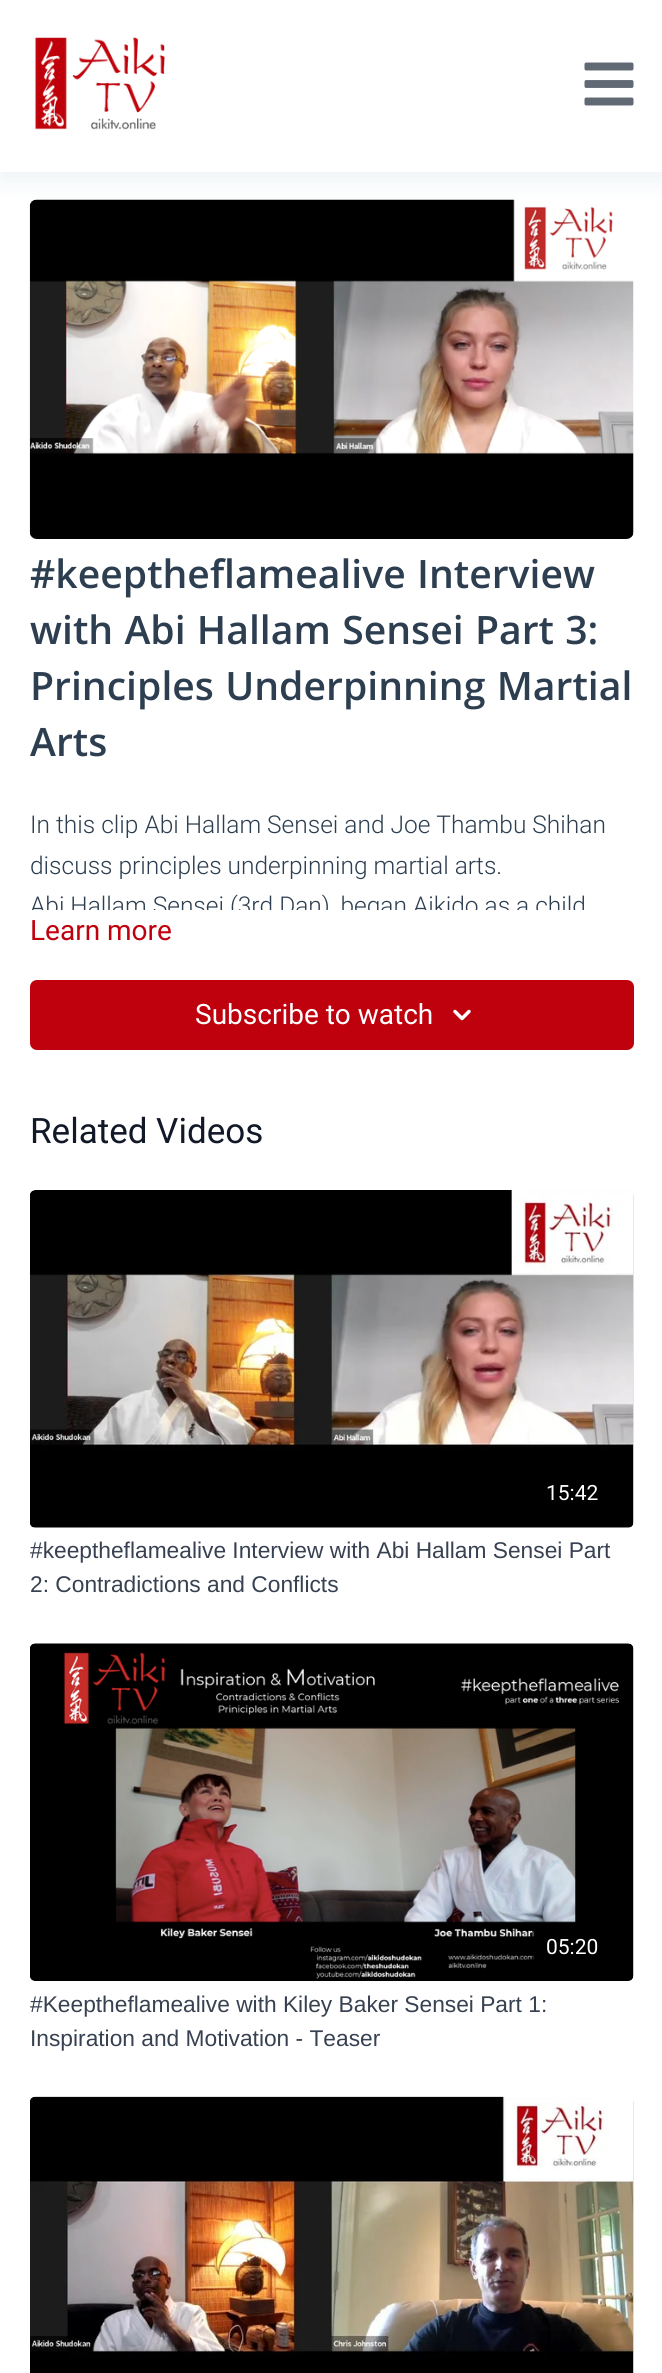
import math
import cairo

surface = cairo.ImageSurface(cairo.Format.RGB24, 662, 2373)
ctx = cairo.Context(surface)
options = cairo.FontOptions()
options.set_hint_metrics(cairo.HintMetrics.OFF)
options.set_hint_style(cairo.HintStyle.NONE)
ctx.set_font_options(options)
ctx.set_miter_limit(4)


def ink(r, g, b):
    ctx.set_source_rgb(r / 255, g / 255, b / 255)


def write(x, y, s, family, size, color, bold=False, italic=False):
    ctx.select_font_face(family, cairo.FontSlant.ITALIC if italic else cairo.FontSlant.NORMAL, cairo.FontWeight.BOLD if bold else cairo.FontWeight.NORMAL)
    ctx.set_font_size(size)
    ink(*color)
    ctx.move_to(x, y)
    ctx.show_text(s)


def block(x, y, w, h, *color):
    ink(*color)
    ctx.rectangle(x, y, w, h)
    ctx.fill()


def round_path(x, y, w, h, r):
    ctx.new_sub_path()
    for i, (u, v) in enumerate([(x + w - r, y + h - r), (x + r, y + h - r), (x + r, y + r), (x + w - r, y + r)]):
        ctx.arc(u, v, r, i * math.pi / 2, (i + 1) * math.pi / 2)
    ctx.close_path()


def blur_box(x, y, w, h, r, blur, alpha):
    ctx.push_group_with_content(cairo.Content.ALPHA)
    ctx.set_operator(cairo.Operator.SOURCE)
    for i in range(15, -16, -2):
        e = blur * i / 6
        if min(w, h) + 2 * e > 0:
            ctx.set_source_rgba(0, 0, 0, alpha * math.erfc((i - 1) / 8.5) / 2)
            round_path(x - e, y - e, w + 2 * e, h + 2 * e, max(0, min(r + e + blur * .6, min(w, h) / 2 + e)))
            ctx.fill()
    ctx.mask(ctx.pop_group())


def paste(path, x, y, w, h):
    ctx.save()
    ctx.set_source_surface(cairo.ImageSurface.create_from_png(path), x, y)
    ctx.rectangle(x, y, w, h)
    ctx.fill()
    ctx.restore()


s1 = dict(family="Khula SemiBold", size=42, color=(44, 62, 80))
s2 = dict(family="Roboto Light", size=24.5, color=(44, 62, 80))
s3 = dict(family="Roboto", size=28, color=(191, 1, 14))
s4 = dict(family="Roboto", size=28, color=(255, 255, 255))
s5 = dict(family="Roboto", size=35, color=(17, 24, 39))
s6 = dict(family="Roboto", size=21, color=(255, 255, 255))
s7 = dict(family="Liberation Sans", size=22.75, color=(55, 65, 81))

ink(255, 255, 255)
ctx.paint()
paste("pic3.png", 29, 199, 605, 340)
ink(14, 90, 136)
blur_box(0, 9, 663, 171, 0, 13, 0.08)
block(0, 0, 662, 172, 255, 255, 255)
paste("pic1.png", 35, 37, 130, 93)
paste("pic2.png", 584, 62, 50, 44)
write(30, 588, "#keeptheflamealive Interview", **s1)
write(30, 644, "with Abi Hallam Sensei Part 3:", **s1)
write(30, 700, "Principles Underpinning Martial", **s1)
write(30, 756, "Arts", **s1)
write(30, 833, "In this clip Abi Hallam Sensei and Joe Thambu Shihan", **s2)
write(30, 874, "discuss principles underpinning martial arts.", **s2)
ctx.save()
ctx.rectangle(30, 805, 604, 105)
ctx.clip()
write(30, 914, "Abi Hallam Sensei (3rd Dan), began Aikido as a child", **s2)
ctx.restore()
write(30, 940, "Learn more", **s3)
round_path(30, 980, 604, 70, 7)
ctx.fill()
write(195, 1024, "Subscribe to watch", **s4)
paste("pic4.png", 453, 1009, 18, 12)
write(30, 1143, "Related Videos", **s5)
gradient = cairo.LinearGradient(30, 1359, 634, 1359)
gradient.add_color_stop_rgba(0.08, 0.871, 0.871, 0.871, 1)
gradient.add_color_stop_rgba(0.18, 0.882, 0.882, 0.882, 1)
gradient.add_color_stop_rgba(0.33, 0.894, 0.894, 0.894, 1)
ctx.set_source(gradient)
round_path(30, 1190, 604, 338, 7)
ctx.fill()
paste("pic5.png", 30, 1190, 604, 338)
write(546, 1500, "15:42", **s6)
write(30, 1558, "#keeptheflamealive Interview with Abi Hallam Sensei Part", **s7)
write(30, 1592, "2: Contradictions and Conflicts", **s7)
gradient = cairo.LinearGradient(30, 1812, 634, 1812)
gradient.add_color_stop_rgba(0.08, 0.871, 0.871, 0.871, 1)
gradient.add_color_stop_rgba(0.18, 0.882, 0.882, 0.882, 1)
gradient.add_color_stop_rgba(0.33, 0.894, 0.894, 0.894, 1)
ctx.set_source(gradient)
round_path(30, 1643, 604, 338, 7)
ctx.fill()
paste("pic6.png", 30, 1643, 604, 338)
ctx.set_source_rgba(0, 0, 0, 0.6)
round_path(532, 1925, 88, 42, 7)
ctx.fill()
write(546, 1954, "05:20", **s6)
write(30, 2012, "#Keeptheflamealive with Kiley Baker Sensei Part 1:", **s7)
write(30, 2046, "Inspiration and Motivation - Teaser", **s7)
gradient = cairo.LinearGradient(30, 2266, 634, 2266)
gradient.add_color_stop_rgba(0.08, 0.871, 0.871, 0.871, 1)
gradient.add_color_stop_rgba(0.18, 0.882, 0.882, 0.882, 1)
gradient.add_color_stop_rgba(0.33, 0.89, 0.89, 0.89, 1)
ctx.set_source(gradient)
round_path(30, 2097, 604, 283, 7)
ctx.fill()
paste("pic7.png", 30, 2096, 604, 277)
surface.write_to_png("screenshot.png")
